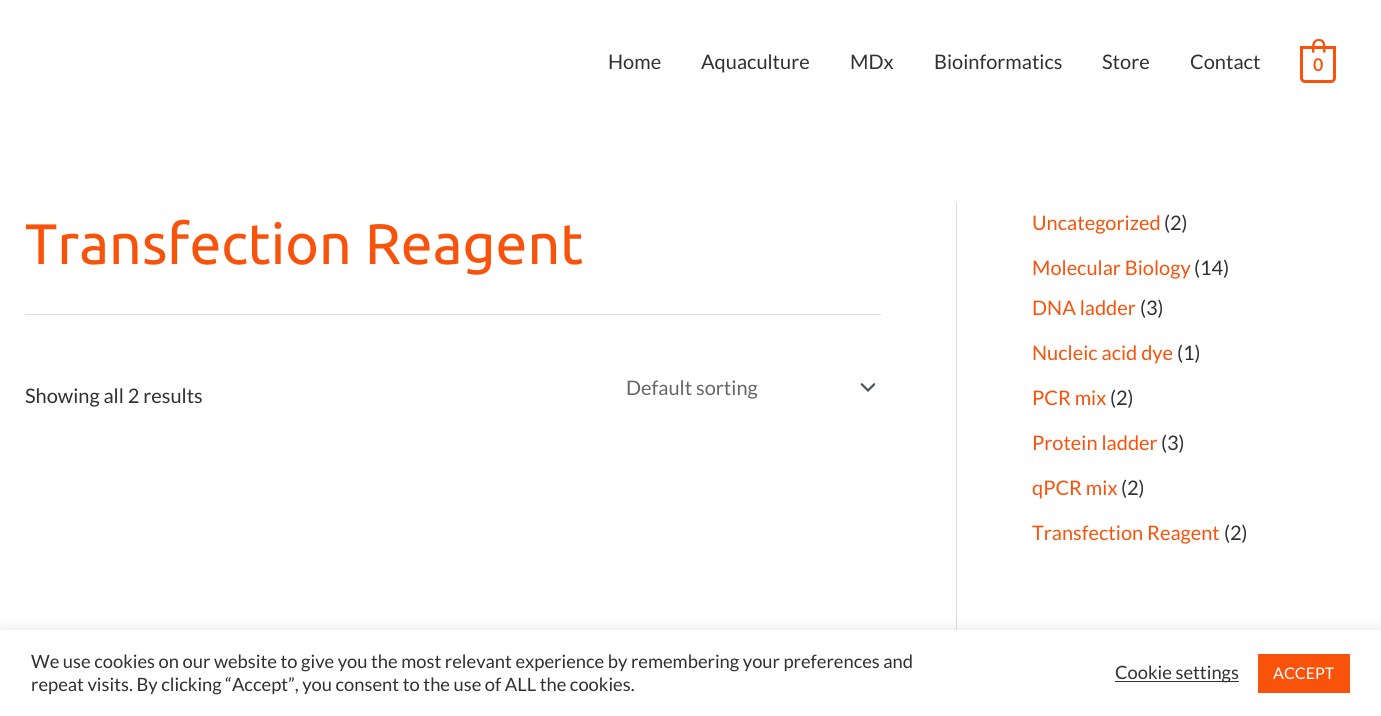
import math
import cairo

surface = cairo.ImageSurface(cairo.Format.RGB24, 1381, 716)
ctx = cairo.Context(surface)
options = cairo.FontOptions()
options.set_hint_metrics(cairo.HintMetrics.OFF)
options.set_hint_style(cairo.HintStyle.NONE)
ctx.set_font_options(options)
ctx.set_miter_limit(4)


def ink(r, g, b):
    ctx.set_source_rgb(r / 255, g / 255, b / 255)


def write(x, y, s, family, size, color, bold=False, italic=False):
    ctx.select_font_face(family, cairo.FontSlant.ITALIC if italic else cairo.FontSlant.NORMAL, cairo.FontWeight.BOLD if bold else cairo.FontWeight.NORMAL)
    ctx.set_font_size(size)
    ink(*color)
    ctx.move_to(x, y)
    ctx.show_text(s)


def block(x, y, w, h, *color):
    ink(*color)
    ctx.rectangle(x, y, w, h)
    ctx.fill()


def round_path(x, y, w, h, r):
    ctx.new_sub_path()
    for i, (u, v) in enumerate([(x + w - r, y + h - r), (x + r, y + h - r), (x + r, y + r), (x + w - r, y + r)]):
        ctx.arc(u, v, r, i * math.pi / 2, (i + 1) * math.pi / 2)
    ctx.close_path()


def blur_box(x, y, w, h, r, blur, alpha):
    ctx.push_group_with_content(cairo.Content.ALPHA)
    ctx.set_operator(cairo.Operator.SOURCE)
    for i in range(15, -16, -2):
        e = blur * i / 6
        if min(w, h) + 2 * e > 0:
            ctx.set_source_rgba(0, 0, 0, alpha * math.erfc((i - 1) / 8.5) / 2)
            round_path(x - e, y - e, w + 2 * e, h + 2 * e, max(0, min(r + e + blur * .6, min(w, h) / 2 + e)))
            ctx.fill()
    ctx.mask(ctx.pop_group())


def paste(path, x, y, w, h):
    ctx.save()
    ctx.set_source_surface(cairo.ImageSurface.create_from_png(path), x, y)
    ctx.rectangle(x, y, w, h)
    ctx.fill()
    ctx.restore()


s1 = dict(family="Lato", size=20, color=(48, 48, 48))
s2 = dict(family="Lato", size=17, color=(249, 82, 11), bold=True)
s3 = dict(family="Ubuntu", size=57.1, color=(249, 82, 11))
s4 = dict(family="Lato", size=20, color=(102, 102, 102))
s5 = dict(family="Lato", size=20, color=(249, 82, 11))
s6 = dict(family="Lato", size=18.35, color=(48, 48, 48))
s7 = dict(family="Lato", size=16, color=(255, 255, 255))

ink(255, 255, 255)
ctx.paint()
write(608, 69, "Home", **s1)
write(701, 69, "Aquaculture", **s1)
write(850, 69, "MDx", **s1)
write(934, 69, "Bioinformatics", **s1)
write(1102, 69, "Store", **s1)
write(1190, 69, "Contact", **s1)
ctx.new_path()
ctx.move_to(1301.5, 47.5)
ctx.line_to(1334.5, 47.5)
ctx.line_to(1334.5, 78)
ctx.curve_to(1334.5, 80, 1333, 81.5, 1331, 81.5)
ctx.line_to(1305, 81.5)
ctx.curve_to(1303, 81.5, 1301.5, 80, 1301.5, 78)
ctx.close_path()
ink(249, 82, 11)
ctx.set_line_width(3)
ctx.stroke()
ctx.set_fill_rule(cairo.FillRule.EVEN_ODD)
ctx.new_path()
ctx.move_to(1319, 39)
ctx.curve_to(1326.5, 39, 1325.5, 47, 1325.5, 52.5)
ctx.line_to(1312, 52.5)
ctx.curve_to(1312, 47, 1311, 39, 1319, 39)
ctx.close_path()
ctx.move_to(1319, 41)
ctx.curve_to(1324.5, 41, 1323, 49, 1323, 52.5)
ctx.line_to(1314.5, 52.5)
ctx.curve_to(1314.5, 49, 1313, 41, 1319, 41)
ctx.close_path()
ctx.fill()
write(1313, 71, "0", **s2)
block(956, 203, 1, 427, 221, 221, 221)
block(25, 314, 856, 1, 221, 221, 221)
write(25, 264, "Transfection Reagent", **s3)
write(25, 403, "Showing all 2 results", **s1)
paste("pic1.png", 860, 383, 15, 9)
write(626, 395, "Default sorting", **s4)
write(1032, 230, "Uncategorized", **s5)
write(1164, 230, "(2)", **s1)
write(1032, 275, "Molecular Biology", **s5)
write(1194, 275, "(14)", **s1)
write(1032, 315, "DNA ladder", **s5)
write(1140, 315, "(3)", **s1)
write(1032, 360, "Nucleic acid dye", **s5)
write(1177, 360, "(1)", **s1)
write(1032, 405, "PCR mix", **s5)
write(1110, 405, "(2)", **s1)
write(1032, 450, "Protein ladder", **s5)
write(1161, 450, "(3)", **s1)
write(1032, 495, "qPCR mix", **s5)
write(1121, 495, "(2)", **s1)
write(1032, 540, "Transfection Reagent", **s5)
write(1224, 540, "(2)", **s1)
ink(172, 171, 171)
blur_box(0, 629, 1381, 86, 0, 6, 0.3)
block(0, 630, 1381, 86, 255, 255, 255)
write(31, 668, "We use cookies on our website to give you the most relevant experience by remembering your preferences and", **s6)
write(31, 691, "repeat visits. By clicking “Accept”, you consent to the use of ALL the cookies.", **s6)
block(1115, 681, 124, 1, 51, 51, 51)
write(1115, 679, "Cookie settings", **s6)
block(1258, 654, 92, 39, 249, 82, 11)
write(1273, 679, "ACCEPT", **s7)
surface.write_to_png("screenshot.png")
